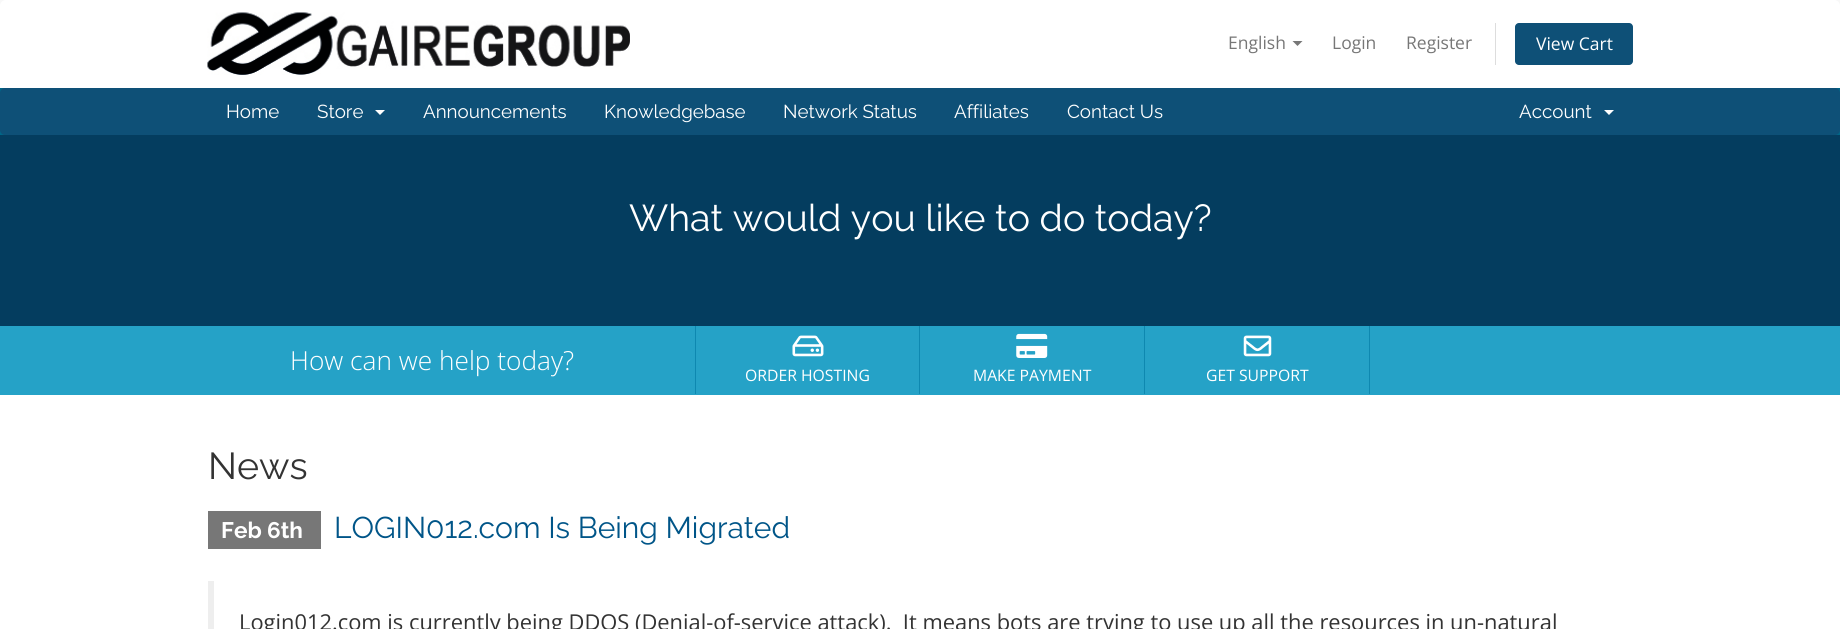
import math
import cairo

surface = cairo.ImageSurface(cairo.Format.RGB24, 1840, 629)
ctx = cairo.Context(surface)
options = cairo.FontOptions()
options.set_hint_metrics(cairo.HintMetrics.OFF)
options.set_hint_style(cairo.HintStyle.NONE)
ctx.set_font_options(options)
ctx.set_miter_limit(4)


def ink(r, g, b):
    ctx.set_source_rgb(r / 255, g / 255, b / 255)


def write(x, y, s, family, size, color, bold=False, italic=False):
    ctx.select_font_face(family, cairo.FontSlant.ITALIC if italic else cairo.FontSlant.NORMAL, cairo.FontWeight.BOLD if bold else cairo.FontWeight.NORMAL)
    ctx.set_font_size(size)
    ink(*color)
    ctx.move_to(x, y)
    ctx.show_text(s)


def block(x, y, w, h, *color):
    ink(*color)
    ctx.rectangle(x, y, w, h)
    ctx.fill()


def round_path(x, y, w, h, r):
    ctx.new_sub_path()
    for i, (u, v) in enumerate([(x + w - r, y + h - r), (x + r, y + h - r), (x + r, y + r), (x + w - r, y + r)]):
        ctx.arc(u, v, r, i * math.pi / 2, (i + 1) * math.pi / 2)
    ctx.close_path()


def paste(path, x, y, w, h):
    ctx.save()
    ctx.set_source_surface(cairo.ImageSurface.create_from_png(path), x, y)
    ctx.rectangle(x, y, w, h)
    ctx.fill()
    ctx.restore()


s1 = dict(family="Open Sans", size=17.5, color=(119, 119, 119))
s2 = dict(family="Open Sans", size=17.5, color=(255, 255, 255))
s3 = dict(family="Raleway", size=18.75, color=(255, 255, 255))
s4 = dict(family="Raleway", size=37.5, color=(255, 255, 255))
s5 = dict(family="Open Sans Light", size=26.25, color=(255, 255, 255))
s6 = dict(family="Open Sans", size=15.75, color=(255, 255, 255))
s7 = dict(family="Raleway", size=37.5, color=(51, 51, 51))
s8 = dict(family="Raleway", size=22.5, color=(255, 255, 255), bold=True)
s9 = dict(family="Raleway", size=30, color=(0, 85, 136))
s10 = dict(family="Open Sans", size=21.88, color=(51, 51, 51))

ink(248, 248, 248)
ctx.paint()
ink(255, 255, 255)
ctx.new_path()
ctx.move_to(6, 0)
ctx.line_to(1834, 0)
ctx.curve_to(1837.5, 0, 1840, 2.5, 1840, 6)
ctx.line_to(1840, 88)
ctx.line_to(0, 88)
ctx.line_to(0, 6)
ctx.curve_to(0, 2.5, 2.5, 0, 6, 0)
ctx.close_path()
ctx.fill()
paste("pic1.png", 207, 12, 423, 63)
write(1228, 49, "English", **s1)
ctx.new_path()
ctx.move_to(1292.5, 41)
ctx.line_to(1302.5, 41)
ctx.line_to(1297.5, 46)
ctx.close_path()
ctx.fill()
write(1332, 49, "Login", **s1)
write(1406, 49, "Register", **s1)
block(1495, 23, 1, 42, 221, 221, 221)
ink(14, 80, 119)
round_path(1515, 23, 118, 42, 4)
ctx.fill()
write(1536, 50, "View Cart", **s2)
block(0, 88, 1840, 47, 0, 102, 135)
ink(14, 80, 119)
round_path(0, 88, 1840, 47, 5)
ctx.fill()
write(226, 118, "Home", **s3)
write(317, 118, "Store", **s3)
ctx.new_path()
ctx.move_to(375, 110)
ctx.line_to(385, 110)
ctx.line_to(380, 115)
ctx.close_path()
ctx.fill()
write(423, 118, "Announcements", **s3)
write(604, 118, "Knowledgebase", **s3)
write(783, 118, "Network Status", **s3)
write(954, 118, "Affiliates", **s3)
write(1067, 118, "Contact Us", **s3)
write(1519, 118, "Account", **s3)
ctx.new_path()
ctx.move_to(1604, 110)
ctx.line_to(1614, 110)
ctx.line_to(1609, 115)
ctx.close_path()
ctx.fill()
block(0, 135, 1840, 191, 4, 61, 95)
write(629, 231, "What would you like to do today?", **s4)
block(0, 326, 1840, 69, 37, 162, 199)
write(290, 370, "How can we help today?", **s5)
block(919, 326, 1, 68, 14, 136, 176)
block(695, 326, 1, 68, 14, 136, 176)
paste("pic2.png", 792, 335, 32, 22)
write(745, 381, "ORDER HOSTING", **s6)
block(1144, 326, 1, 68, 14, 136, 176)
paste("pic3.png", 1016, 333, 32, 25)
write(973, 381, "MAKE PAYMENT", **s6)
block(1369, 326, 1, 68, 14, 136, 176)
paste("pic4.png", 1243, 335, 29, 22)
write(1206, 381, "GET SUPPORT", **s6)
block(0, 395, 1840, 234, 255, 255, 255)
write(208, 479, "News", **s7)
block(208, 511, 113, 38, 119, 119, 119)
write(221, 538, "Feb 6th", **s8)
write(334, 538, "LOGIN012.com Is Being Migrated", **s9)
block(208, 581, 6, 48, 238, 238, 238)
write(239, 630, "Login012.com is currently being DDOS (Denial-of-service attack).  It means bots are trying to use up all the resources in un-natural", **s10)
surface.write_to_png("screenshot.png")
